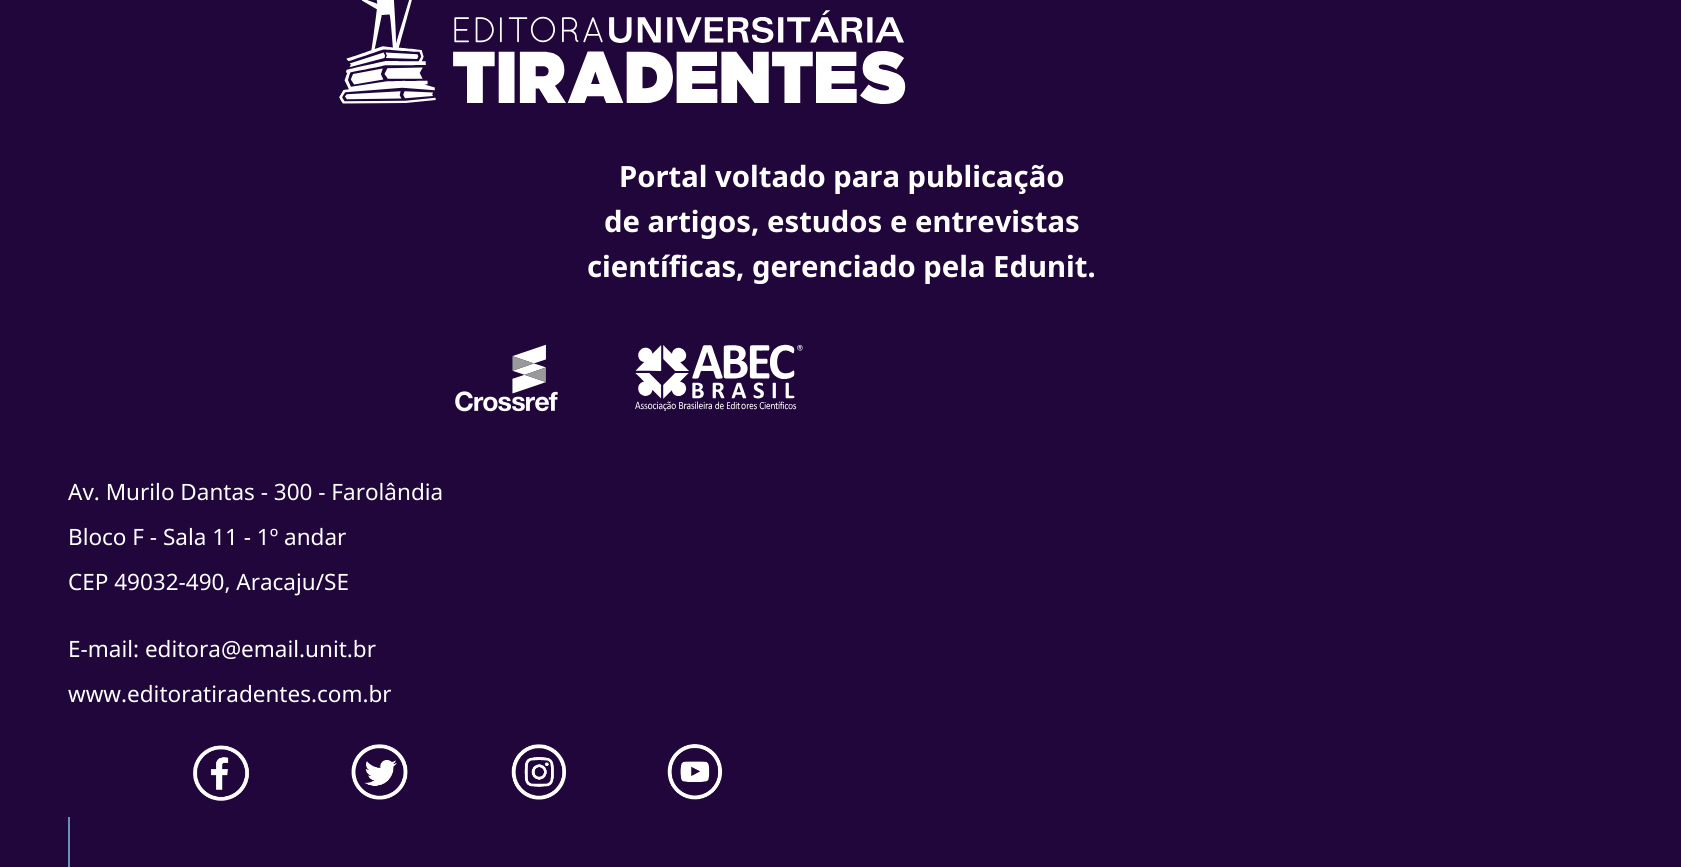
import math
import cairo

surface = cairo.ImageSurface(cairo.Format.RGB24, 1681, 867)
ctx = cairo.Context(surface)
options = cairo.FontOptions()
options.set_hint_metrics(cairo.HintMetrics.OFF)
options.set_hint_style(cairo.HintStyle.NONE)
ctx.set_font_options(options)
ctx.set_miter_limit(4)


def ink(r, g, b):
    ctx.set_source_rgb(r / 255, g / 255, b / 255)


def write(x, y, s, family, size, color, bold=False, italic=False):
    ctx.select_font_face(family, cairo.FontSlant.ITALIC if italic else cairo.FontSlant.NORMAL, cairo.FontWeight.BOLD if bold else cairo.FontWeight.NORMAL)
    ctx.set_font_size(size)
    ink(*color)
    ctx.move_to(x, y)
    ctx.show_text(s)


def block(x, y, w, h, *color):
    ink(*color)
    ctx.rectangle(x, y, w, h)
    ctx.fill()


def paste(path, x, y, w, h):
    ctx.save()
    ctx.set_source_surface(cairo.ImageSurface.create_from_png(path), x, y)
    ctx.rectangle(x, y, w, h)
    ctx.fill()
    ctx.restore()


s1 = dict(family="Noto Sans", size=29.25, color=(255, 255, 255), bold=True)
s2 = dict(family="Noto Sans", size=22.5, color=(255, 255, 255))

ink(32, 6, 59)
ctx.paint()
paste("pic1.png", 339, 0, 567, 104)
write(619, 187, "Portal voltado para publicação", **s1)
write(604, 232, "de artigos, estudos e entrevistas", **s1)
write(587, 277, "científicas, gerenciado pela Edunit.", **s1)
paste("pic2.png", 455, 344, 103, 68)
paste("pic3.png", 635, 344, 168, 67)
write(68, 500, "Av. Murilo Dantas - 300 - Farolândia", **s2)
write(68, 545, "Bloco F - Sala 11 - 1º andar", **s2)
write(68, 590, "CEP 49032-490, Aracaju/SE", **s2)
write(68, 657, "E-mail: editora@email.unit.br", **s2)
write(68, 702, "www.editoratiradentes.com.br", **s2)
paste("pic4.png", 193, 745, 57, 56)
paste("pic5.png", 351, 744, 57, 56)
paste("pic6.png", 511, 744, 55, 56)
paste("pic7.png", 667, 744, 56, 56)
block(68, 817, 2, 50, 102, 148, 181)
surface.write_to_png("screenshot.png")
